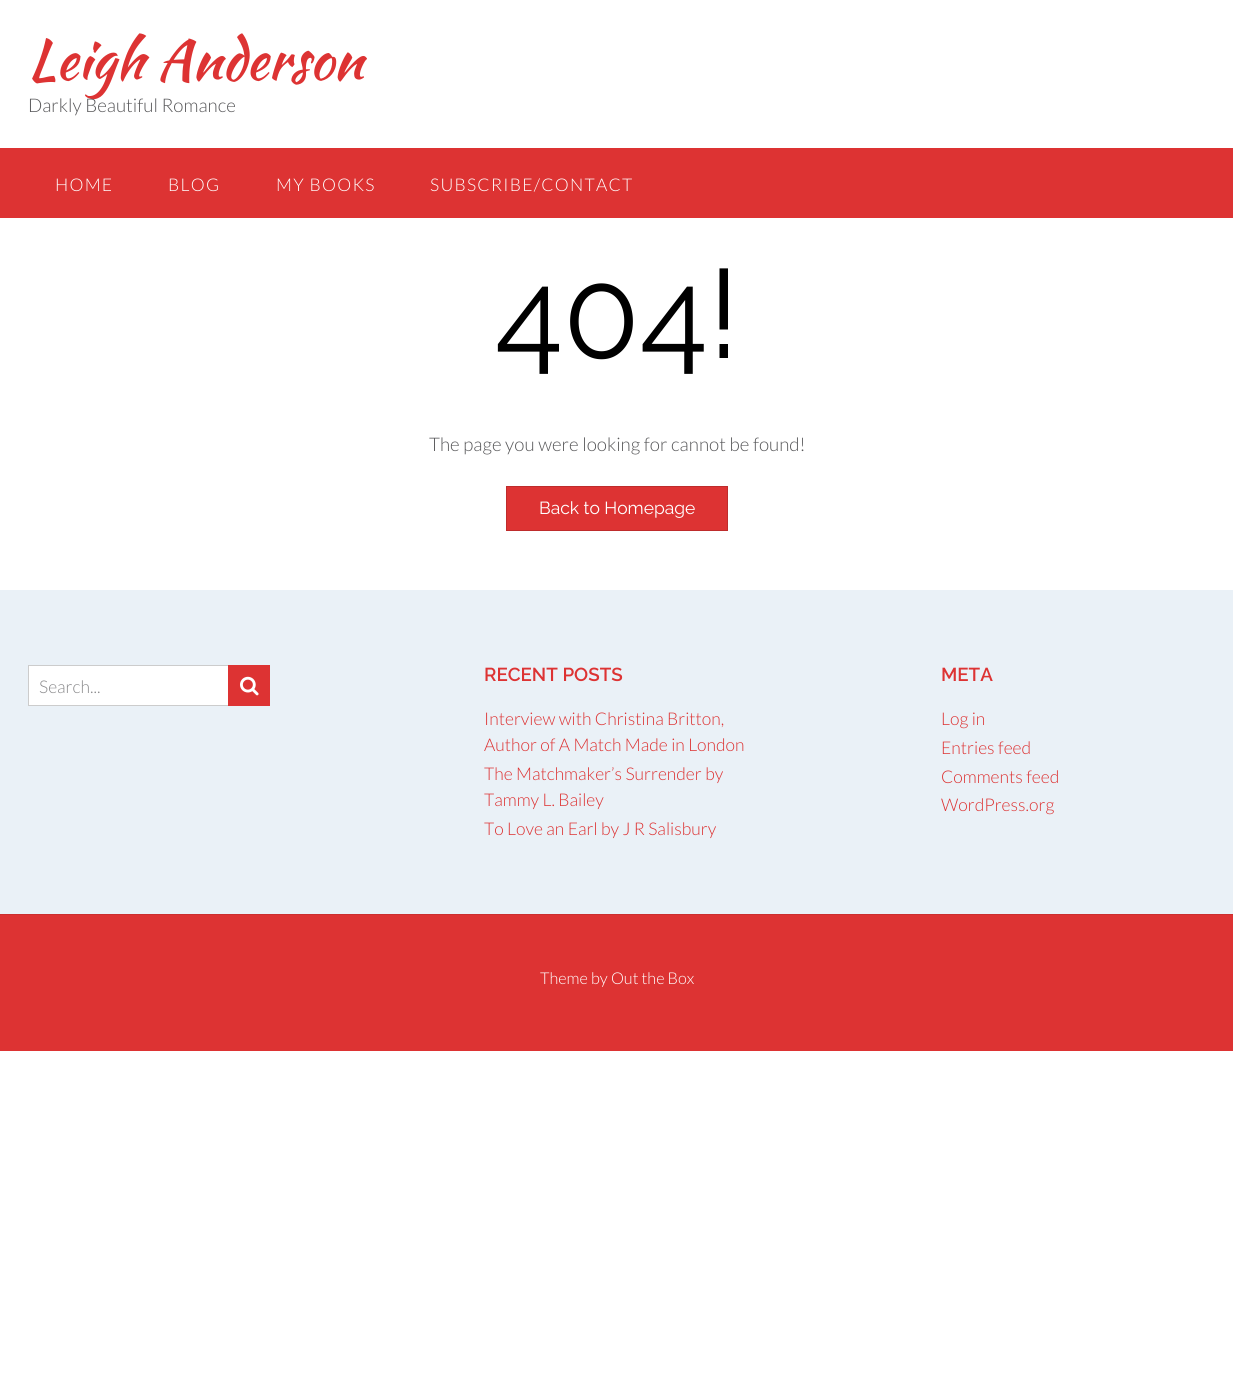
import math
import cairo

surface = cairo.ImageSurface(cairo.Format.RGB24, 1233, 1397)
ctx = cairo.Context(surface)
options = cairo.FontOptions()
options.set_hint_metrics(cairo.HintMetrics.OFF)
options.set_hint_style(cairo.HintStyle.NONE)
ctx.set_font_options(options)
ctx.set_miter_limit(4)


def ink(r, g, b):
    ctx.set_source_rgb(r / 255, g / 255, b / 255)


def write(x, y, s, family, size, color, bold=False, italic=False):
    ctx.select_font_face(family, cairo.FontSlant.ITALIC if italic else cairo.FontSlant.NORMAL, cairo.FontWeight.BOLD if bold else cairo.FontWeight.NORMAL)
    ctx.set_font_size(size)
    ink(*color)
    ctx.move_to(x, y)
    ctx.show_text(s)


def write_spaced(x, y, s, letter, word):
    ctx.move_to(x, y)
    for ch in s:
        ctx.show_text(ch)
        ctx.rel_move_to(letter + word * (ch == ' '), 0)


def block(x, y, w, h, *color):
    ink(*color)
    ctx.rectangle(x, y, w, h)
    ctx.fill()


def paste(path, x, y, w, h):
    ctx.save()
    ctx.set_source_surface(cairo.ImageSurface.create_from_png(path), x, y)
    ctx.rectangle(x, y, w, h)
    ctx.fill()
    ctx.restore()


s1 = dict(family="Kaushan Script", size=55, color=(221, 51, 51))
s2 = dict(family="Lato Light", size=18.75, color=(88, 88, 90))
s3 = dict(family="Raleway", size=125, color=(0, 0, 0))
s4 = dict(family="Raleway", size=17.5, color=(255, 255, 255))
s5 = dict(family="Lato Light", size=17.5, color=(138, 138, 140))
s6 = dict(family="Raleway SemiBold", size=18.75, color=(221, 51, 51))
s7 = dict(family="Lato Light", size=17.5, color=(221, 51, 51))
s8 = dict(family="Lato Light", size=16.25, color=(255, 255, 255))

ink(255, 255, 255)
ctx.paint()
write(28, 79, "Leigh Anderson", **s1)
write(28, 112, "Darkly Beautiful Romance", **s2)
block(0, 148, 1233, 70, 221, 51, 51)
ctx.set_font_size(17.5)
ink(255, 255, 255)
write_spaced(55, 191, "HOME", 1.25, 0)
write_spaced(168, 191, "BLOG", 1.25, 0)
write_spaced(276, 191, "MY BOOKS", 1.25, 0)
write_spaced(430, 191, "SUBSCRIBE/CONTACT", 1.25, 0)
write(495, 358, "404!", **s3)
write(429, 451, "The page you were looking for cannot be found!", **s2)
ink(221, 51, 51)
ctx.rectangle(506.5, 486.5, 221, 44)
ctx.fill_preserve()
ink(190, 44, 44)
ctx.set_line_width(1)
ctx.stroke()
write(539, 514, "Back to Homepage", **s4)
block(0, 590, 1233, 324, 234, 241, 247)
block(29, 666, 199, 39, 255, 255, 255)
ctx.rectangle(28.5, 665.5, 202, 40)
ink(204, 204, 204)
ctx.stroke()
write(39, 693, "Search...", **s5)
block(228, 665, 42, 41, 221, 51, 51)
paste("pic1.png", 240, 676, 19, 20)
write(484, 681, "RECENT POSTS", **s6)
write(484, 725, "Interview with Christina Britton,", **s7)
write(484, 751, "Author of A Match Made in London", **s7)
write(484, 780, "The Matchmaker’s Surrender by", **s7)
write(484, 806, "Tammy L. Bailey", **s7)
write(484, 835, "To Love an Earl by J R Salisbury", **s7)
write(941, 681, "META", **s6)
write(941, 725, "Log in", **s7)
write(941, 754, "Entries feed", **s7)
write(941, 783, "Comments feed", **s7)
write(941, 811, "WordPress.org", **s7)
block(0, 915, 1233, 136, 221, 51, 51)
block(0, 914, 1233, 1, 203, 47, 47)
write(540, 984, "Theme by Out the Box", **s8)
surface.write_to_png("screenshot.png")
